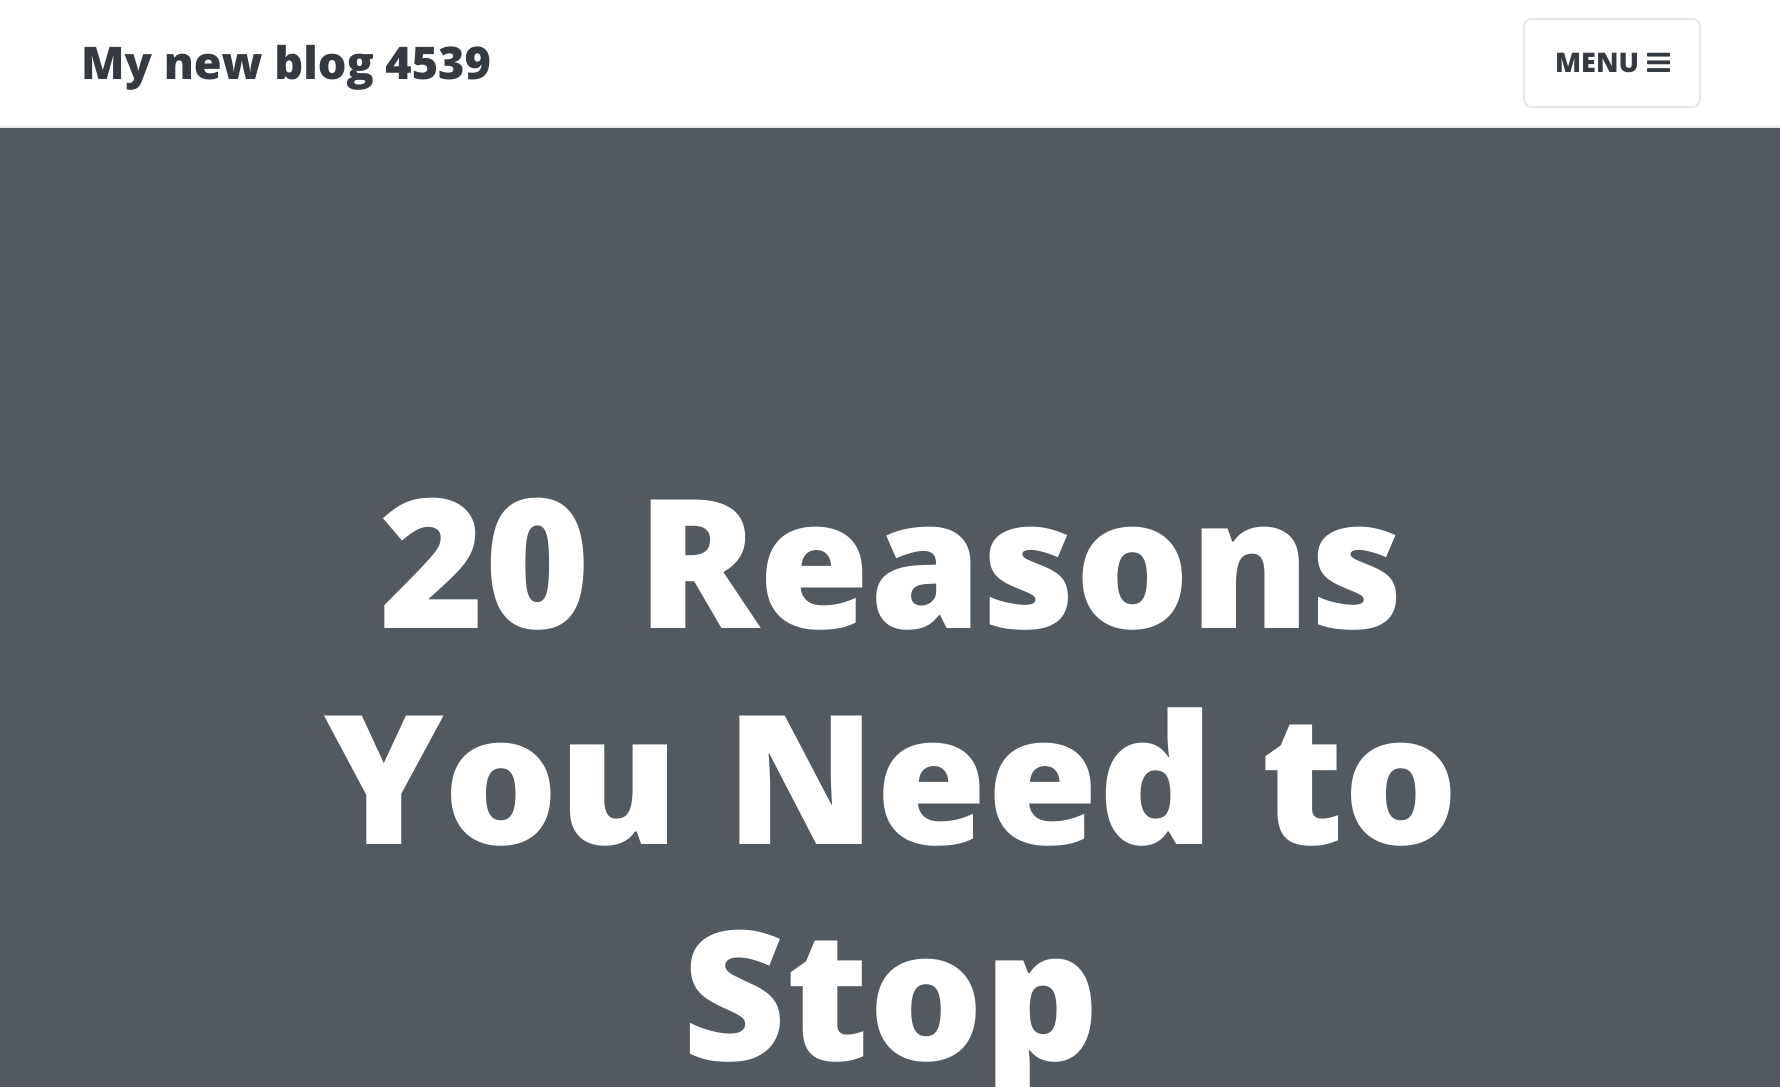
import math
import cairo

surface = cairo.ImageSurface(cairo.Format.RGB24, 1780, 1087)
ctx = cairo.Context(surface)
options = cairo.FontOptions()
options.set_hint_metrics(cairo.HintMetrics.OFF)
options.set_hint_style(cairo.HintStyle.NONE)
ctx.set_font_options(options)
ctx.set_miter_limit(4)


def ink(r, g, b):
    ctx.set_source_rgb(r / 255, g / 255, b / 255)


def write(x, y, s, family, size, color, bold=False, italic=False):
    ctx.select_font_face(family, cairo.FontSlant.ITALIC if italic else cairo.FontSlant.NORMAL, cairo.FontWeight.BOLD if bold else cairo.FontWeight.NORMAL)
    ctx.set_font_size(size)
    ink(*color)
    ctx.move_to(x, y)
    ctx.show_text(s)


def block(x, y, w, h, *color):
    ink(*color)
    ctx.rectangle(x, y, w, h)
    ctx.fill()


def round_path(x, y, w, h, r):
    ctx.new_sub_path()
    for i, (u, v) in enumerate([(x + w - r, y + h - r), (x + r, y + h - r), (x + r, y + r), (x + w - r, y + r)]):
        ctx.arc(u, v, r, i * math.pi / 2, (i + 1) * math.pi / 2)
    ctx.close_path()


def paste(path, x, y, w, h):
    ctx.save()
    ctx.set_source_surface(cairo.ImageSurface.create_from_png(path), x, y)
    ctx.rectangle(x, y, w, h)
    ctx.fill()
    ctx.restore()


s1 = dict(family="Open Sans ExtraBold", size=45, color=(52, 58, 64))
s2 = dict(family="Open Sans ExtraBold", size=27, color=(52, 58, 64))
s3 = dict(family="Open Sans ExtraBold", size=180, color=(255, 255, 255))

ink(82, 90, 95)
ctx.paint()
block(0, 0, 1780, 126, 255, 255, 255)
block(0, 126, 1780, 2, 233, 236, 239)
write(81, 79, "My new blog 4539", **s1)
round_path(1524, 19, 176, 88, 8)
ink(230, 230, 230)
ctx.stroke()
write(1555, 72, "MENU", **s2)
paste("pic1.png", 1647, 52, 24, 20)
write(379, 628, "20 Reasons", **s3)
write(324, 844, "You Need to", **s3)
write(682, 1060, "Stop", **s3)
surface.write_to_png("screenshot.png")
